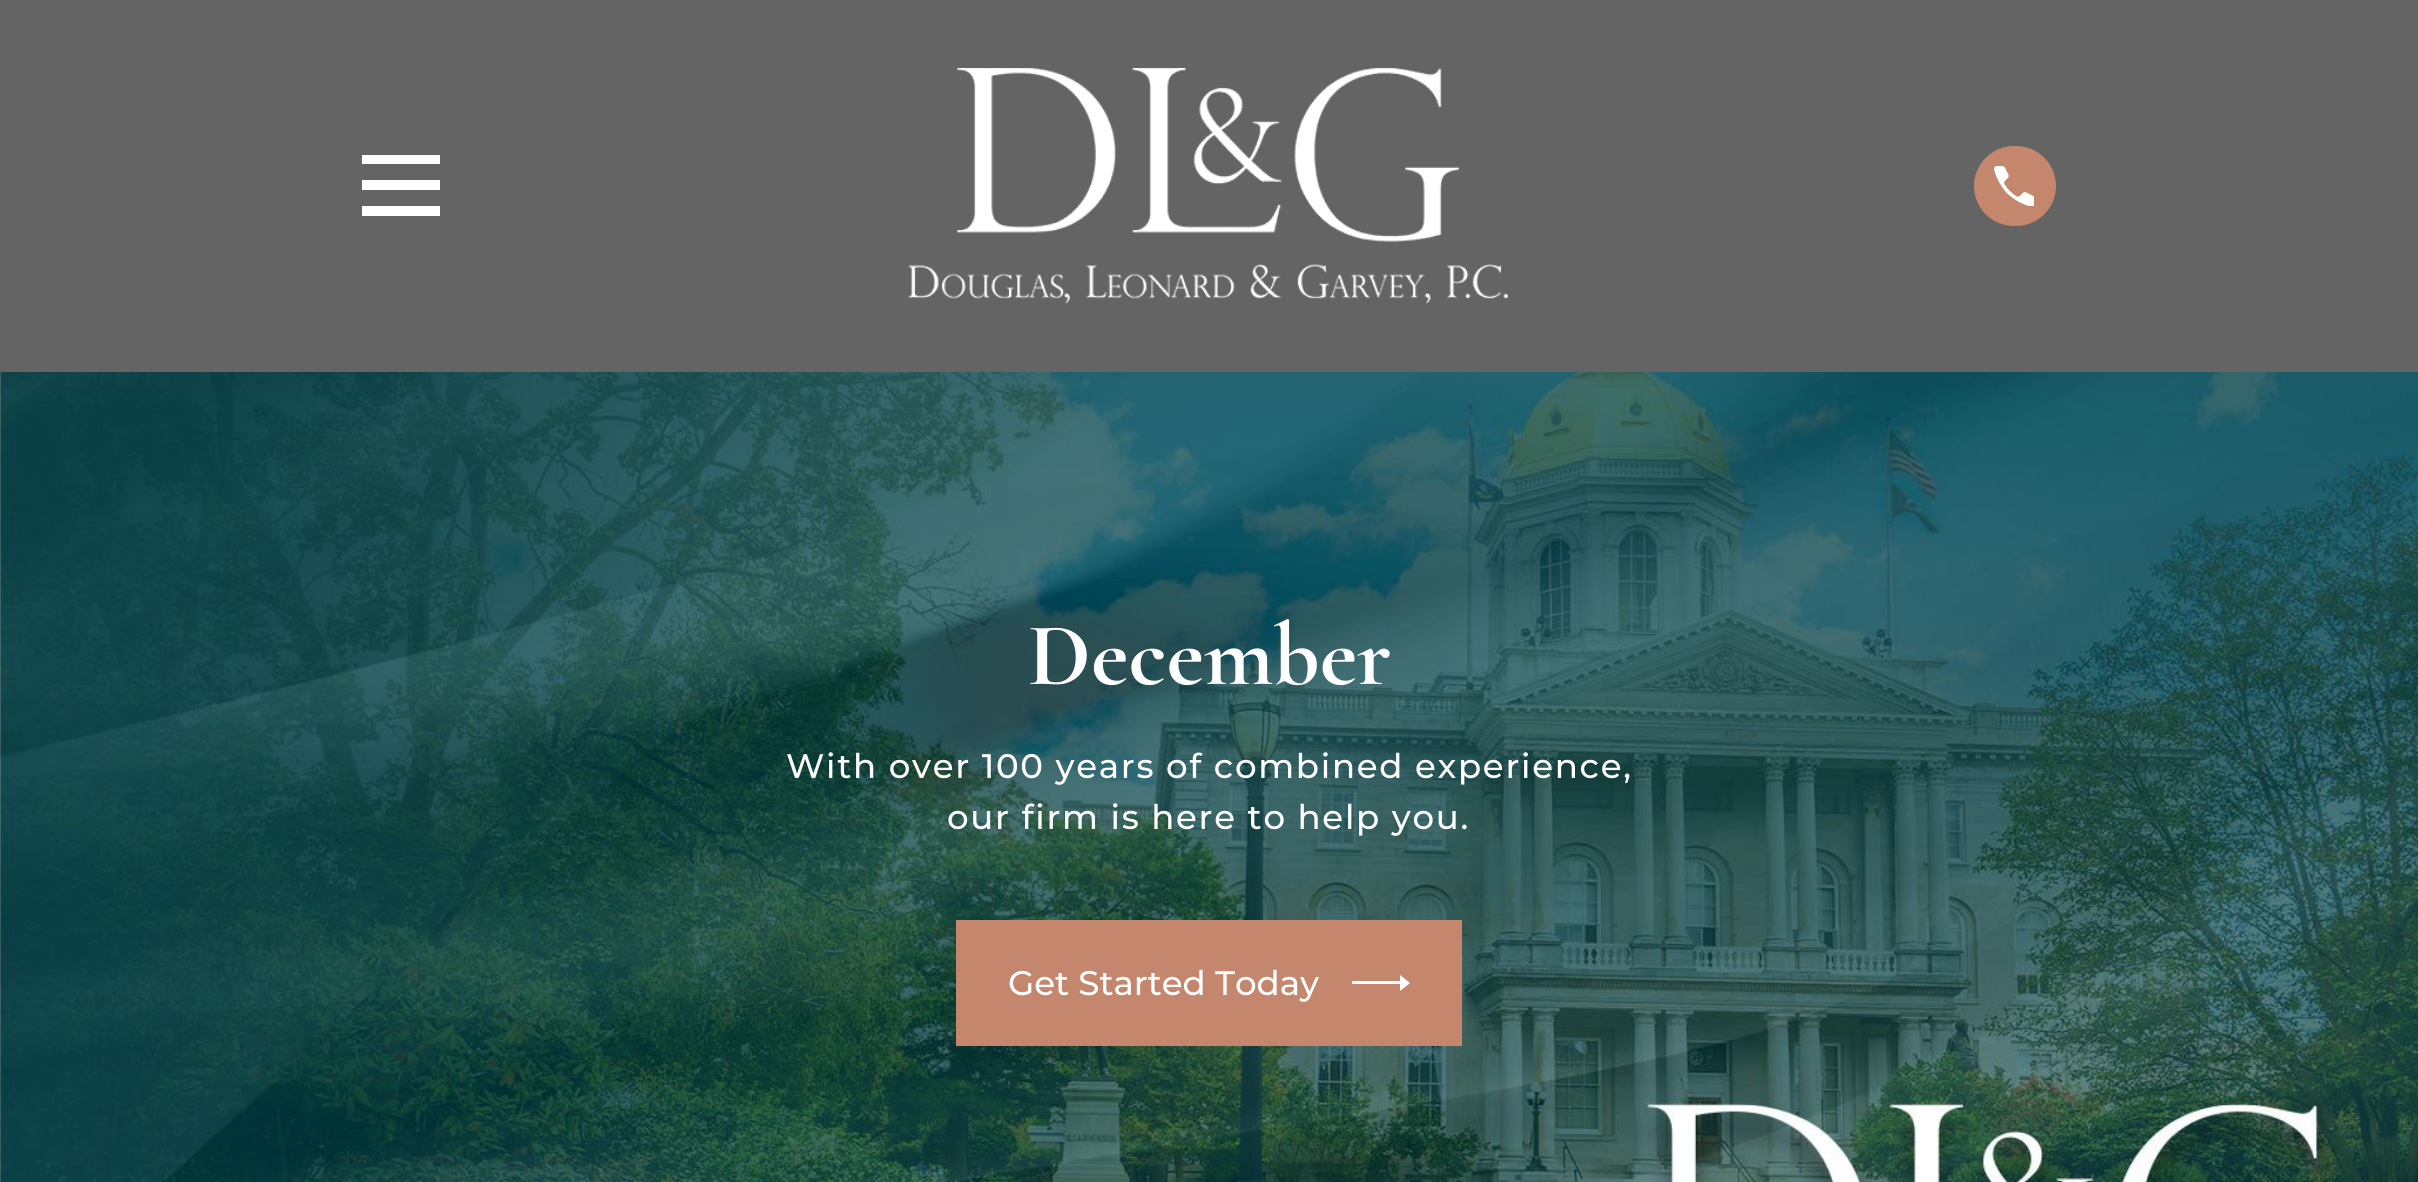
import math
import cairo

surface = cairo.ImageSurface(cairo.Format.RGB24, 2418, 1182)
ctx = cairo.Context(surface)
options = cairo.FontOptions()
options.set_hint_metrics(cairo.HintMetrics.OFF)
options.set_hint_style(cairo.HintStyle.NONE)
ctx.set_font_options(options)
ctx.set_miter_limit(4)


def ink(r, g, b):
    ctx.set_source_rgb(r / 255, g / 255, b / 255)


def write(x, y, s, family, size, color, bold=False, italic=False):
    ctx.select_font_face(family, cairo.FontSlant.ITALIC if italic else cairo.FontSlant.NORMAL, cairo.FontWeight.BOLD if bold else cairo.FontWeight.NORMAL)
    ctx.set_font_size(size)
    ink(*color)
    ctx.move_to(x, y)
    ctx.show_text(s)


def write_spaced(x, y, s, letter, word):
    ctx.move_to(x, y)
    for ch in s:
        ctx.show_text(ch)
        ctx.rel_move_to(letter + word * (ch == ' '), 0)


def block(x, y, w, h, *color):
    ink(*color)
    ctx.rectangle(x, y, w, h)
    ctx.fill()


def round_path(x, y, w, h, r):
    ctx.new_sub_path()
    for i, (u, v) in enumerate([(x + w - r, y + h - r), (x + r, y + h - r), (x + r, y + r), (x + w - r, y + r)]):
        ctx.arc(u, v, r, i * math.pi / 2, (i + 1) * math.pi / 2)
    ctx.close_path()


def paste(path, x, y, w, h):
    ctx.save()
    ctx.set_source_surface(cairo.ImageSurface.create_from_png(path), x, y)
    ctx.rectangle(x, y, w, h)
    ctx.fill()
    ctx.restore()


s1 = dict(family="Cormorant Garamond", size=89.5, color=(255, 255, 255), bold=True)
s2 = dict(family="Montserrat Medium", size=34, color=(255, 255, 255))

ink(255, 255, 255)
ctx.paint()
block(0, 0, 2418, 372, 100, 100, 100)
ink(255, 255, 255)
ctx.new_path()
ctx.move_to(362, 155)
ctx.line_to(362, 164)
ctx.line_to(440, 164)
ctx.line_to(440, 155)
ctx.close_path()
ctx.move_to(362, 180)
ctx.line_to(362, 190)
ctx.line_to(440, 190)
ctx.line_to(440, 180)
ctx.close_path()
ctx.move_to(362, 206)
ctx.line_to(362, 216)
ctx.line_to(440, 216)
ctx.line_to(440, 206)
ctx.close_path()
ctx.fill()
paste("pic1.png", 908, 68, 600, 236)
ink(196, 135, 110)
round_path(1974, 146, 82, 80, 40)
ctx.fill()
paste("pic2.png", 1994, 166, 40, 40)
paste("pic3.png", 0, 372, 2418, 810)
write(1028, 684, "December", **s1)
ctx.select_font_face("Montserrat Medium")
ctx.set_font_size(34)
write_spaced(786, 778, "With over 100 years of combined experience,", 1.7, 0)
write_spaced(947, 829, "our firm is here to help you.", 1.7, 0)
block(956, 920, 506, 126, 196, 135, 110)
write(1008, 995, "Get Started Today", **s2)
ctx.new_path()
ctx.move_to(1400, 975)
ctx.line_to(1400, 981)
ctx.line_to(1352, 981)
ctx.line_to(1352, 984)
ctx.line_to(1400, 984)
ctx.line_to(1400, 991)
ctx.line_to(1410, 983)
ctx.close_path()
ctx.fill()
surface.write_to_png("screenshot.png")
